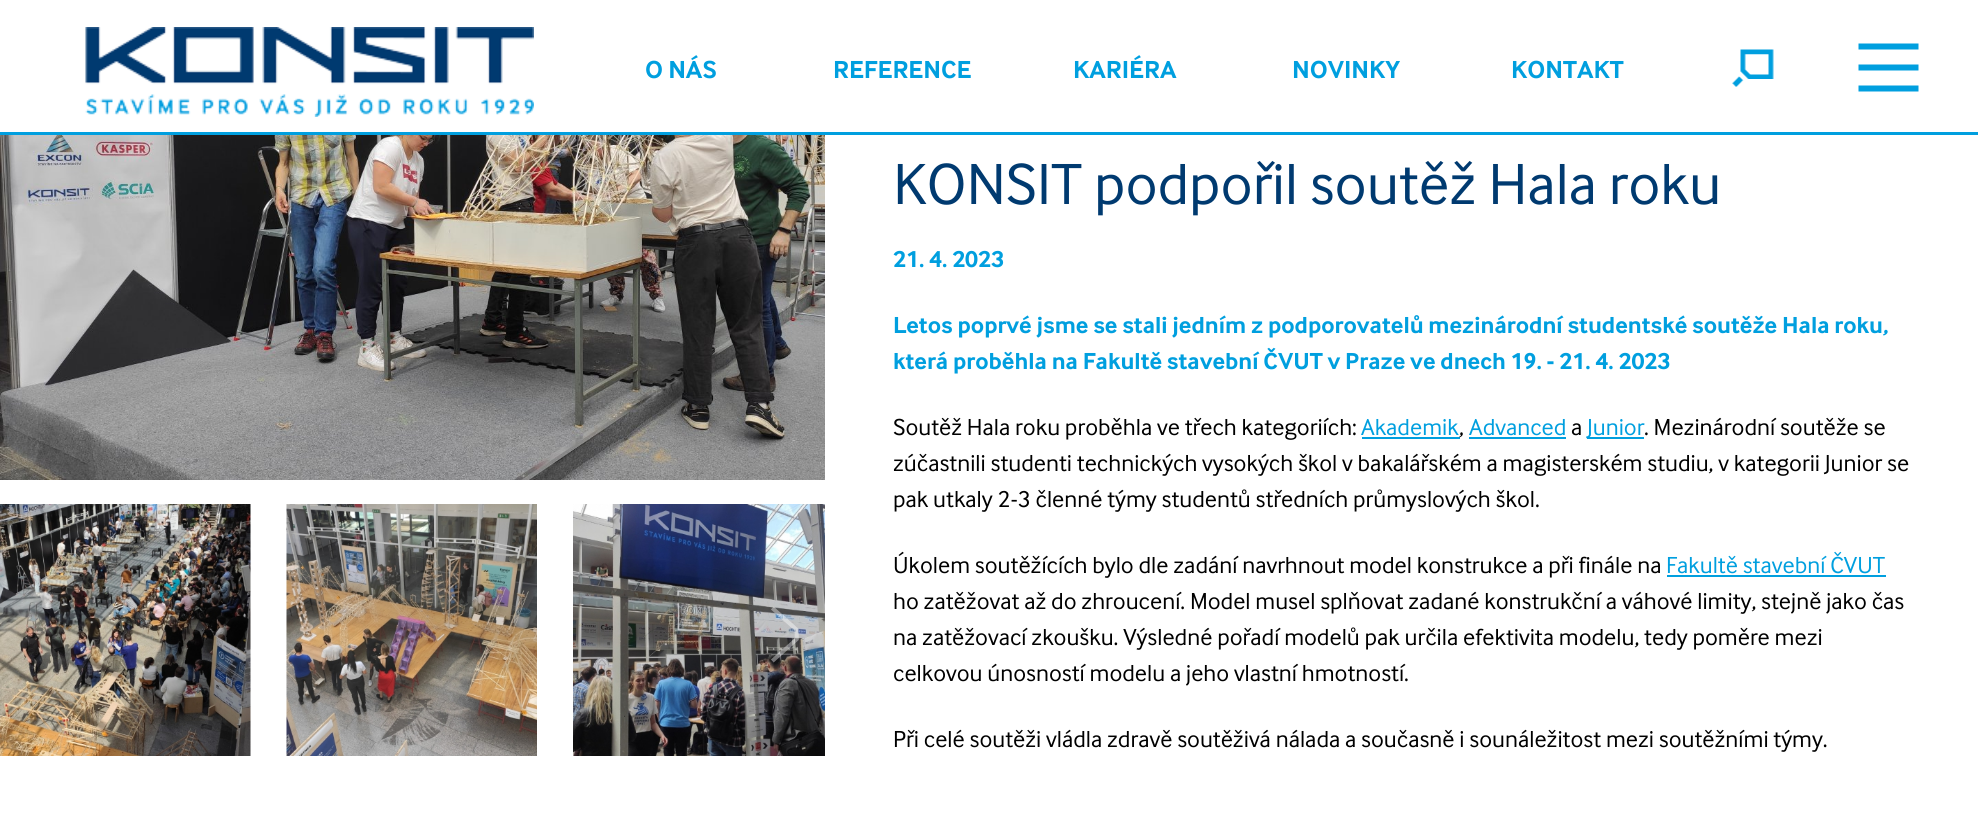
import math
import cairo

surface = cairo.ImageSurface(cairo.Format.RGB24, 1978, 818)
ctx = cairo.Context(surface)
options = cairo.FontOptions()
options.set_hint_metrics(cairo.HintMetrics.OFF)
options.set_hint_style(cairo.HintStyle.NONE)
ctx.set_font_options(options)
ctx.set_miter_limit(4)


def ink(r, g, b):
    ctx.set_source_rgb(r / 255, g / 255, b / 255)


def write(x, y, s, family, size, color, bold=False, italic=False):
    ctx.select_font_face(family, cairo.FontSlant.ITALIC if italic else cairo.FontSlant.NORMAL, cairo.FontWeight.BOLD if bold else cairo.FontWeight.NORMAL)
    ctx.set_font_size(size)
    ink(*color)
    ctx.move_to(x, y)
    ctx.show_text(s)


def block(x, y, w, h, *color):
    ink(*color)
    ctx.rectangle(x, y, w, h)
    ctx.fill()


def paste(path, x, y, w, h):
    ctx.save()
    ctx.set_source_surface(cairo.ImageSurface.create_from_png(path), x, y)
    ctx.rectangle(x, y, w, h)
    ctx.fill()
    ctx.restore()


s1 = dict(family="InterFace", size=25.5, color=(0, 159, 223), bold=True)
s2 = dict(family="InterFace", size=60, color=(0, 58, 112))
s3 = dict(family="InterFace", size=24, color=(0, 159, 223), bold=True)
s4 = dict(family="InterFace", size=24, color=(0, 0, 0))
s5 = dict(family="InterFace", size=24, color=(0, 159, 223))

ink(255, 255, 255)
ctx.paint()
block(0, 132, 1978, 3, 0, 159, 223)
paste("pic1.png", 85, 27, 449, 90)
write(645, 78, "O NÁS", **s1)
write(833, 78, "REFERENCE", **s1)
write(1073, 78, "KARIÉRA", **s1)
write(1292, 78, "NOVINKY", **s1)
write(1511, 78, "KONTAKT", **s1)
paste("pic2.png", 1732, 49, 42, 38)
paste("pic3.png", 1858, 43, 61, 49)
paste("pic4.png", 0, 135, 825, 345)
paste("pic5.png", 0, 504, 251, 252)
paste("pic6.png", 286, 504, 251, 252)
paste("pic7.png", 573, 504, 252, 252)
paste("pic8.png", 771, 606, 28, 57)
write(893, 204, "KONSIT podpořil soutěž Hala roku", **s2)
write(893, 267, "21. 4. 2023", **s3)
write(893, 333, "Letos poprvé jsme se stali jedním z podporovatelů mezinárodní studentské soutěže Hala roku,", **s3)
write(893, 369, "která proběhla na Fakultě stavební ČVUT v Praze ve dnech 19. - 21. 4. 2023", **s3)
write(893, 435, "Soutěž Hala roku proběhla ve třech kategoriích:", **s4)
write(1361, 435, "Akademik", **s5)
block(1362, 437, 98, 2, 0, 159, 223)
write(1459, 435, ",", **s4)
write(1469, 435, "Advanced", **s5)
block(1469, 437, 97, 2, 0, 159, 223)
write(1571, 435, "a", **s4)
block(1587, 437, 57, 2, 0, 159, 223)
write(1587, 435, "Junior", **s5)
write(1644, 435, ". Mezinárodní soutěže se", **s4)
write(893, 471, "zúčastnili studenti technických vysokých škol v bakalářském a magisterském studiu, v kategorii Junior se", **s4)
write(893, 507, "pak utkaly 2-3 členné týmy studentů středních průmyslových škol.", **s4)
write(893, 573, "Úkolem soutěžících bylo dle zadání navrhnout model konstrukce a při finále na", **s4)
write(1666, 573, "Fakultě stavební ČVUT", **s5)
block(1667, 575, 219, 2, 0, 159, 223)
write(893, 609, "ho zatěžovat až do zhroucení. Model musel splňovat zadané konstrukční a váhové limity, stejně jako čas", **s4)
write(893, 645, "na zatěžovací zkoušku. Výsledné pořadí modelů pak určila efektivita modelu, tedy poměre mezi", **s4)
write(893, 681, "celkovou únosností modelu a jeho vlastní hmotností.", **s4)
write(893, 747, "Při celé soutěži vládla zdravě soutěživá nálada a současně i sounáležitost mezi soutěžními týmy.", **s4)
surface.write_to_png("screenshot.png")
